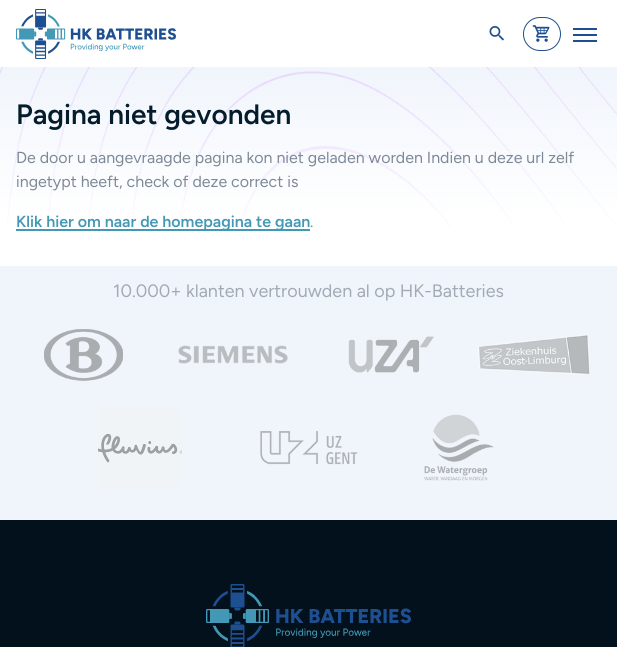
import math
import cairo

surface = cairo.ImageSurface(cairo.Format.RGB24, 617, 647)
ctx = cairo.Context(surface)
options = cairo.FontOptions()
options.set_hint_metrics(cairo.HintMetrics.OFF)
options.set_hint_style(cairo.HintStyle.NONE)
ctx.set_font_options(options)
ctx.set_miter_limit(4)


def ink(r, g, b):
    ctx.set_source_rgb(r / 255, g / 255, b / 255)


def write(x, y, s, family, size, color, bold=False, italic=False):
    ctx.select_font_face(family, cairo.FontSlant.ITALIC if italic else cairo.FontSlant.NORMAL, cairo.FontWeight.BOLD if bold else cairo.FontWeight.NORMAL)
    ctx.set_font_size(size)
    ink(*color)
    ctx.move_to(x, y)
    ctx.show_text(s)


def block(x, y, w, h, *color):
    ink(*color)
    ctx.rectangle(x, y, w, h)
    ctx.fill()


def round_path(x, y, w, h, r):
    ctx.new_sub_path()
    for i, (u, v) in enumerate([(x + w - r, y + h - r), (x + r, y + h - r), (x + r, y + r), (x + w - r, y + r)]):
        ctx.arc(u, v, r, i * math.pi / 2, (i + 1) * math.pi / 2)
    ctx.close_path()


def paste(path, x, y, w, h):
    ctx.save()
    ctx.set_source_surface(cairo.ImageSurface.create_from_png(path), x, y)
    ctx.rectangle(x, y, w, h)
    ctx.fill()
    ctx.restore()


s1 = dict(family="Figtree SemiBold", size=28, color=(4, 28, 44))
s2 = dict(family="Figtree", size=16, color=(125, 137, 151))
s3 = dict(family="Figtree SemiBold", size=16, color=(66, 152, 181))
s4 = dict(family="Figtree", size=18, color=(162, 170, 180))

ink(255, 255, 255)
ctx.paint()
paste("pic1.png", 16, 9, 160, 50)
paste("pic2.png", 489, 26, 15, 15)
round_path(523.5, 17.5, 37, 33, 16.5)
ink(29, 79, 145)
ctx.set_line_width(1)
ctx.stroke()
paste("pic3.png", 532, 25, 18, 17)
block(573, 34, 24, 2, 29, 79, 145)
block(573, 28, 24, 2, 29, 79, 145)
block(573, 40, 24, 2, 29, 79, 145)
paste("pic4.png", 0, 67, 617, 159)
write(16, 124, "Pagina niet gevonden", **s1)
write(16, 163, "De door u aangevraagde pagina kon niet geladen worden Indien u deze url zelf", **s2)
write(16, 187, "ingetypt heeft, check of deze correct is", **s2)
block(16, 229, 294, 2, 66, 152, 181)
write(16, 227, "Klik hier om naar de homepagina te gaan", **s3)
write(310, 227, ".", **s2)
block(0, 266, 617, 254, 240, 245, 252)
write(113, 297, "10.000+ klanten vertrouwden al op HK-Batteries", **s4)
paste("pic5.png", 44, 329, 79, 52)
paste("pic6.png", 178, 345, 110, 19)
paste("pic7.png", 348, 336, 86, 37)
paste("pic8.png", 478, 334, 112, 41)
paste("pic9.png", 98, 407, 84, 81)
paste("pic10.png", 260, 431, 98, 34)
paste("pic11.png", 424, 414, 70, 67)
block(0, 520, 617, 127, 2, 17, 28)
paste("pic12.png", 206, 584, 205, 63)
surface.write_to_png("screenshot.png")
